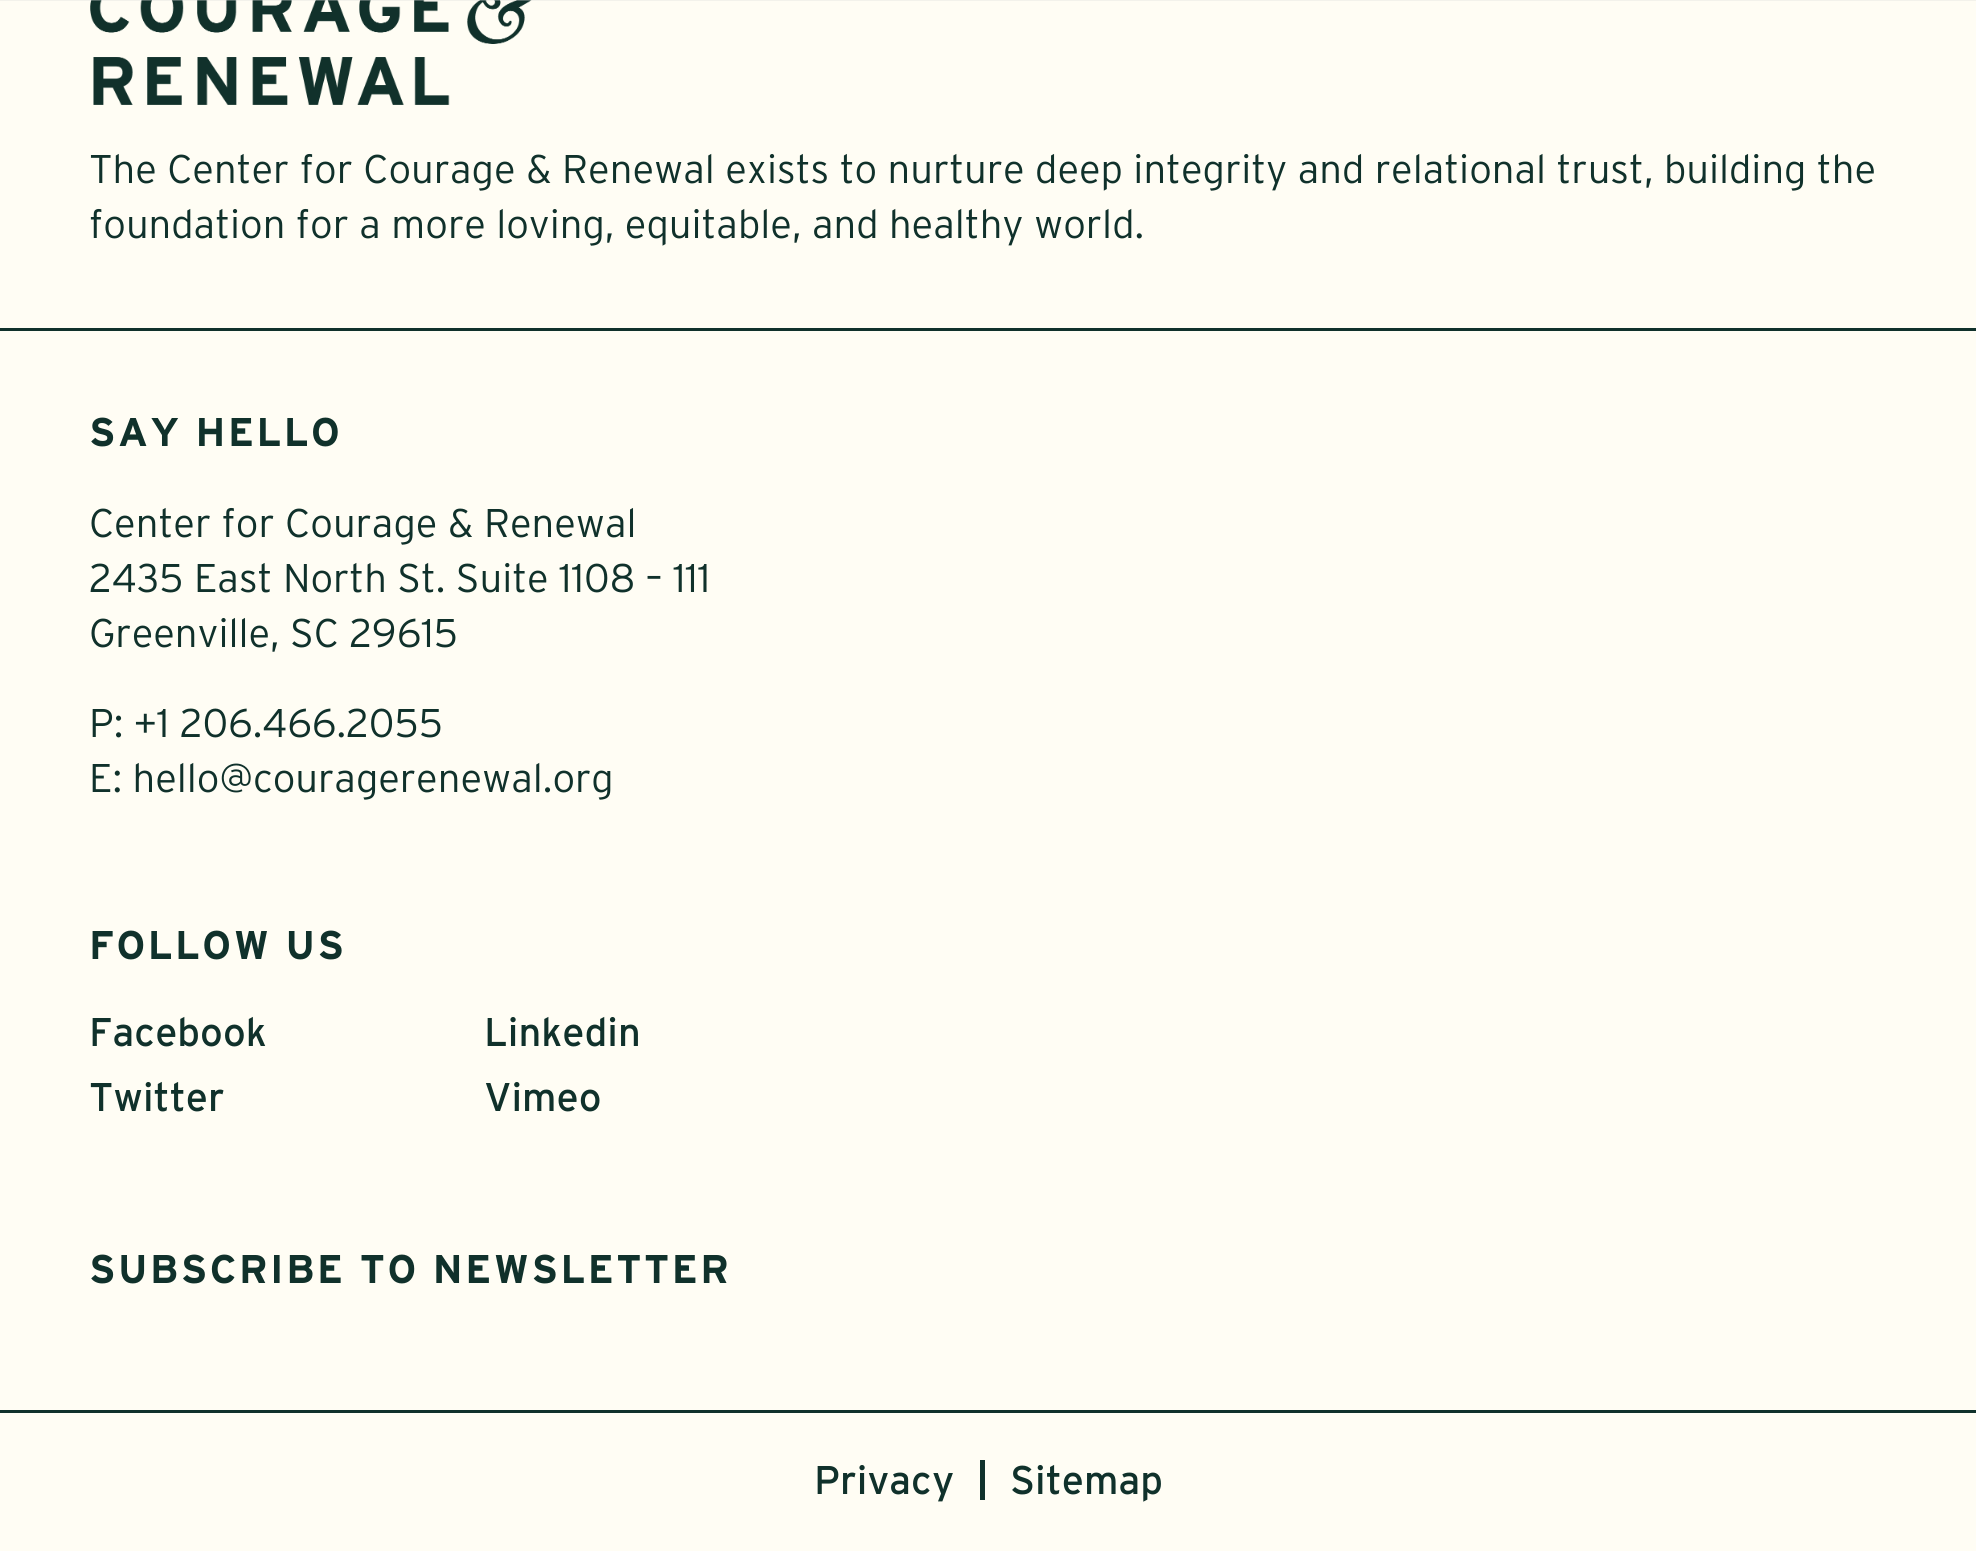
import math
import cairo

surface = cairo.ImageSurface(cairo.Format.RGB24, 1976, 1551)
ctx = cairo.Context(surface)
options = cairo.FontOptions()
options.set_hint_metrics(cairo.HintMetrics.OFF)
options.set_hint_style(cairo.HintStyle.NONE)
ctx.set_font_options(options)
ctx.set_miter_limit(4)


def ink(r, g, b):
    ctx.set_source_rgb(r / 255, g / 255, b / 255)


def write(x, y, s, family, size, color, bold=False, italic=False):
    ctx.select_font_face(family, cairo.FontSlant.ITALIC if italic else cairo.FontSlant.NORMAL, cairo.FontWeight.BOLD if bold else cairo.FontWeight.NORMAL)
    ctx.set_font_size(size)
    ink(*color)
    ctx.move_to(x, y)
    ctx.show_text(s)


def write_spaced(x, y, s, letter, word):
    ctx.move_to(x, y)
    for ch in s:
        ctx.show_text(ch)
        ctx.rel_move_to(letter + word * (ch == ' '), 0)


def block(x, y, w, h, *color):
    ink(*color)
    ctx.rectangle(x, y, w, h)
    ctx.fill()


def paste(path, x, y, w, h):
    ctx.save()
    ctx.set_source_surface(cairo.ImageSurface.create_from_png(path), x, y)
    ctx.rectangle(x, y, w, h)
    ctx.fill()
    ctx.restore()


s1 = dict(family="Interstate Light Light", size=40, color=(16, 49, 43))
s2 = dict(family="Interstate", size=40, color=(16, 49, 43))

ink(255, 253, 244)
ctx.paint()
paste("pic1.png", 90, 0, 442, 105)
ctx.set_source_rgba(0.847, 0.847, 0.847, 0.31)
ctx.rectangle(0, 0, 1976, 1)
ctx.fill()
block(0, 328, 1976, 3, 16, 49, 43)
write(89, 183, "The Center for Courage & Renewal exists to nurture deep integrity and relational trust, building the", **s1)
write(89, 238, "foundation for a more loving, equitable, and healthy world.", **s1)
ctx.select_font_face("Interstate", cairo.FontSlant.NORMAL, cairo.FontWeight.BOLD)
write_spaced(89, 446, "SAY HELLO", 2.5, 0)
write(89, 537, "Center for Courage & Renewal", **s1)
write(89, 592, "2435 East North St. Suite 1108 – 111", **s1)
write(89, 647, "Greenville, SC 29615", **s1)
write(89, 737, "P: +1 206.466.2055", **s1)
write(89, 792, "E: hello@couragerenewal.org", **s1)
ctx.select_font_face("Interstate", cairo.FontSlant.NORMAL, cairo.FontWeight.BOLD)
write_spaced(89, 959, "FOLLOW US", 2.5, 0)
write(89, 1046, "Facebook", **s2)
write(484, 1046, "Linkedin", **s2)
write(89, 1111, "Twitter", **s2)
write(484, 1111, "Vimeo", **s2)
ctx.select_font_face("Interstate", cairo.FontSlant.NORMAL, cairo.FontWeight.BOLD)
write_spaced(89, 1283, "SUBSCRIBE TO NEWSLETTER", 2.5, 0)
block(0, 1410, 1976, 3, 16, 49, 43)
write(814, 1494, "Privacy", **s2)
block(980, 1460, 5, 40, 16, 49, 43)
write(1010, 1494, "Sitemap", **s2)
surface.write_to_png("screenshot.png")
